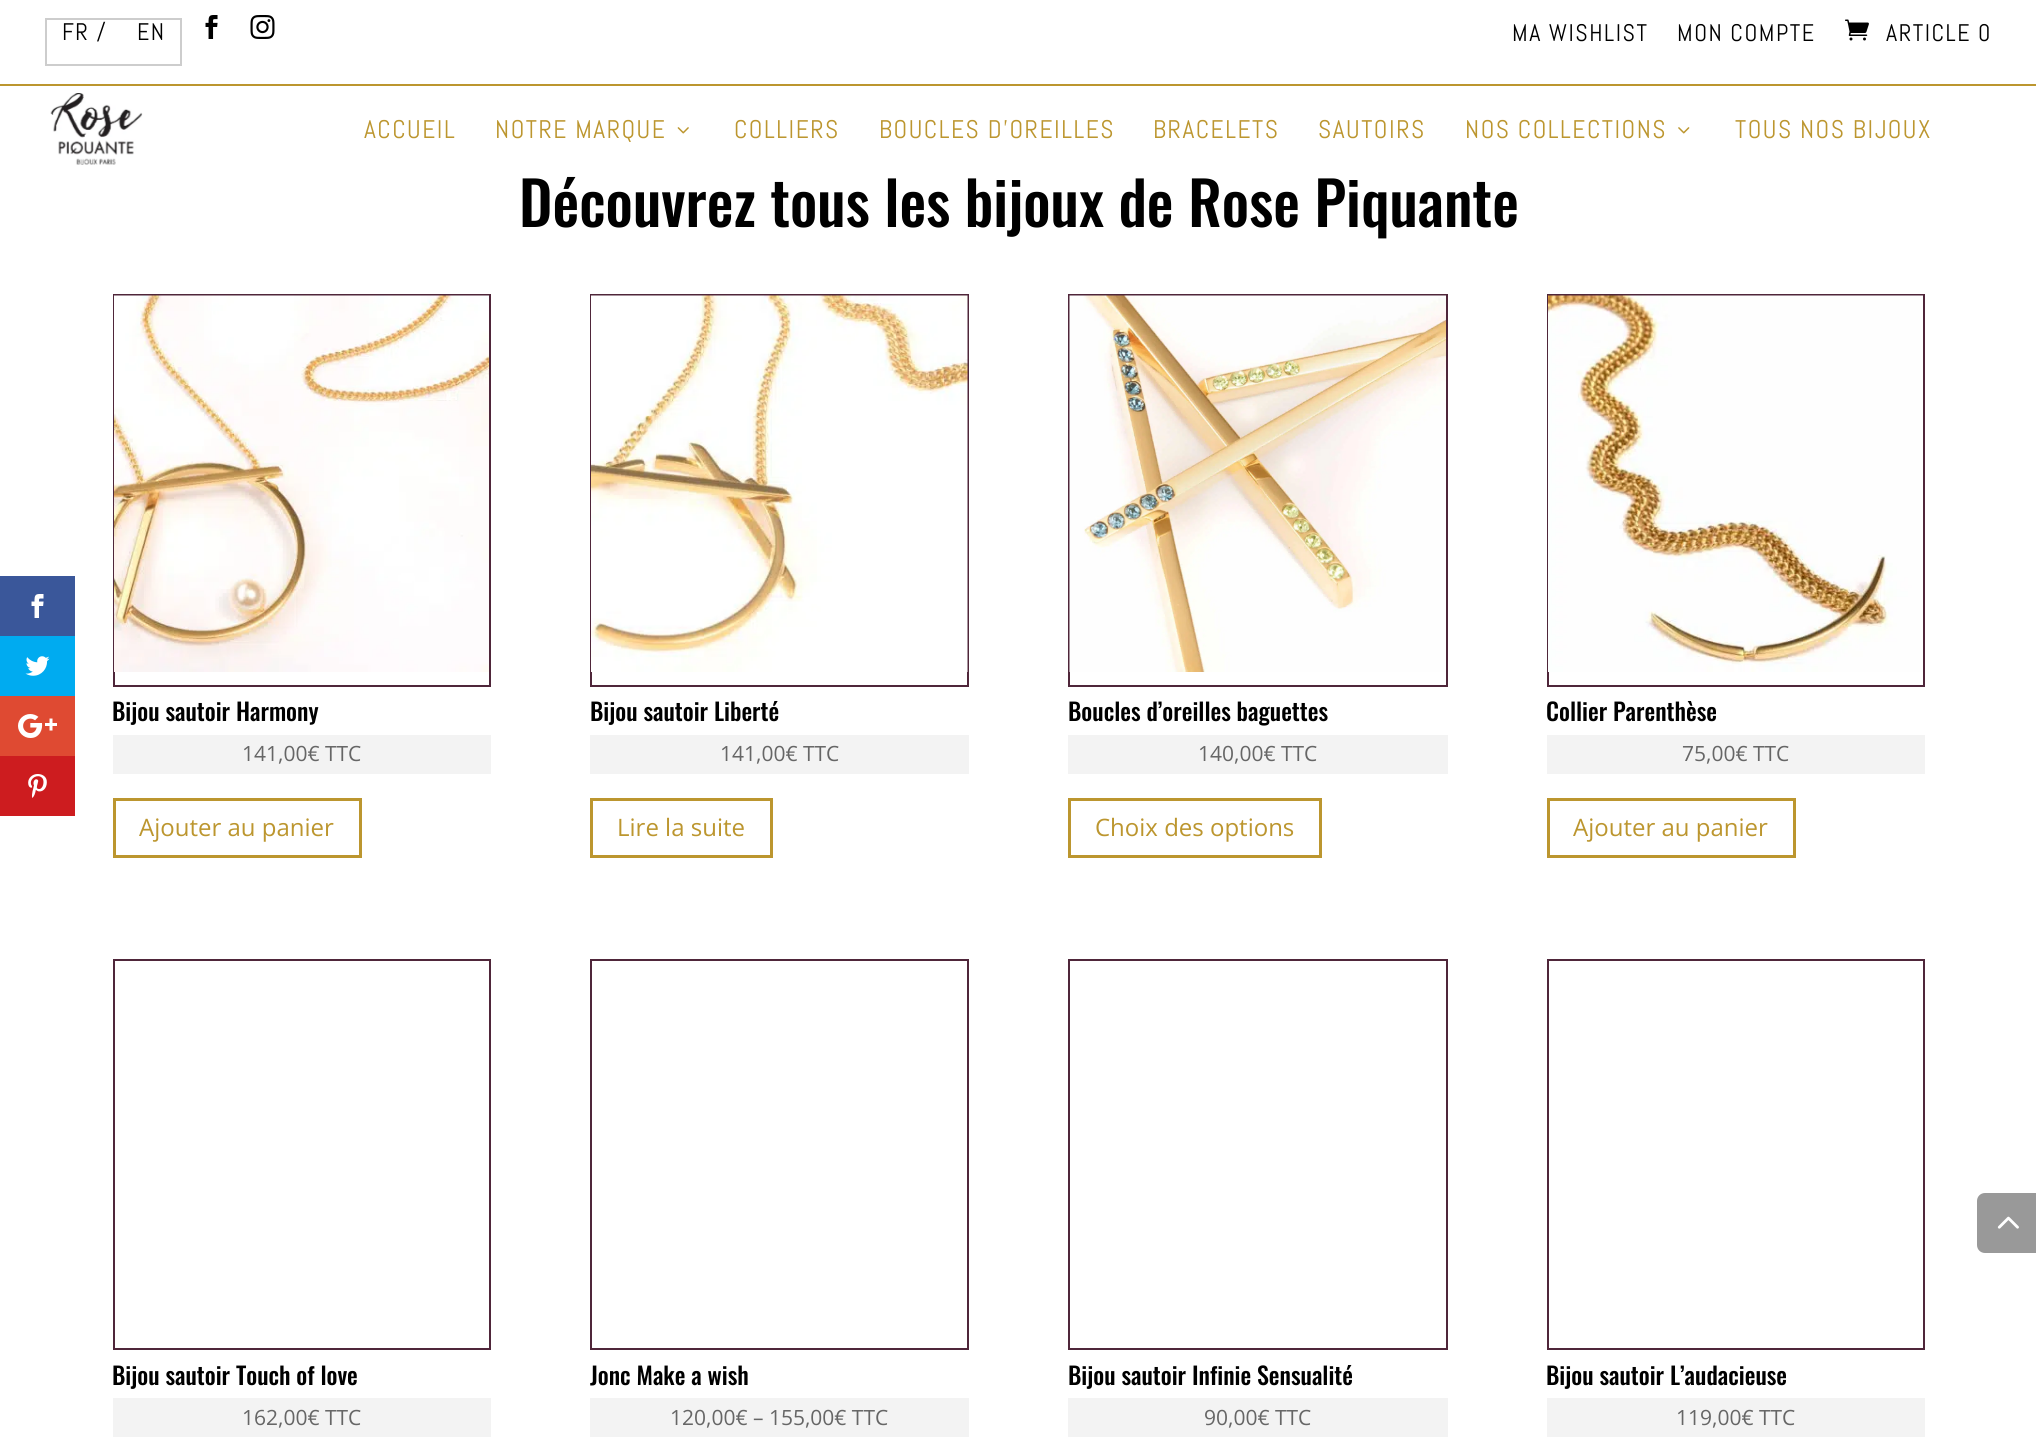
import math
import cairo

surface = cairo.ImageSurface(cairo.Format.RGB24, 2036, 1439)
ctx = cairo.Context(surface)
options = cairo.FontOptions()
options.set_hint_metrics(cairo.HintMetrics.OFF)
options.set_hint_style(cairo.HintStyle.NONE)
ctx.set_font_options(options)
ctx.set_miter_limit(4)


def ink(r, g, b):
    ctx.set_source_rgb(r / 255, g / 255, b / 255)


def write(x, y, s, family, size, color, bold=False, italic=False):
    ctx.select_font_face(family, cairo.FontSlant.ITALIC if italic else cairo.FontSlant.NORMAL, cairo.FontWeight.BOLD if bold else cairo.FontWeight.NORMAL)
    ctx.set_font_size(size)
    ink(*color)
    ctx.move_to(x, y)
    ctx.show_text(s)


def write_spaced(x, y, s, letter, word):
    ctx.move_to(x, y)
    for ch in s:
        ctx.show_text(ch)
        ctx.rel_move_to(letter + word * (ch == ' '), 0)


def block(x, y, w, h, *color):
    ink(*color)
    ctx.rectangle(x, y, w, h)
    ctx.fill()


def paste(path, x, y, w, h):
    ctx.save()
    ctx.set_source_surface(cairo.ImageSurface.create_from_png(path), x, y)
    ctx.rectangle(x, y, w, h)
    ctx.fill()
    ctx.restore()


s1 = dict(family="Oswald Medium", size=60, color=(0, 0, 0))
s2 = dict(family="Oswald Medium", size=24, color=(0, 0, 0))
s3 = dict(family="Open Sans", size=21, color=(102, 102, 102))
s4 = dict(family="Open Sans", size=24, color=(188, 150, 47))

ink(255, 255, 255)
ctx.paint()
block(0, 84, 2036, 2, 188, 150, 47)
ctx.rectangle(46, 19, 135, 46)
ink(205, 205, 205)
ctx.stroke()
ctx.select_font_face("Abel")
ctx.set_font_size(24)
ink(0, 0, 0)
write_spaced(62, 40, "FR /", 1.5, 0)
write_spaced(137, 40, "EN", 1.5, 0)
paste("pic1.png", 205, 15, 13, 24)
paste("pic2.png", 250, 15, 25, 24)
write_spaced(1512, 41, "MA WISHLIST", 1.5, 0)
write_spaced(1677, 41, "MON COMPTE", 1.5, 0)
paste("pic3.png", 1845, 19, 24, 22)
write_spaced(1886, 41, "ARTICLE 0", 1.5, 0)
paste("pic4.png", 50, 93, 93, 72)
ctx.set_font_size(25.5)
ink(188, 150, 47)
write_spaced(364, 138, "ACCUEIL", 1.5, 0)
write_spaced(495, 138, "NOTRE MARQUE", 1.5, 0)
paste("pic5.png", 677, 127, 12, 7)
write_spaced(734, 138, "COLLIERS", 1.5, 0)
write_spaced(879, 138, "BOUCLES D’OREILLES", 1.5, 0)
write_spaced(1153, 138, "BRACELETS", 1.5, 0)
write_spaced(1318, 138, "SAUTOIRS", 1.5, 0)
write_spaced(1465, 138, "NOS COLLECTIONS", 1.5, 0)
paste("pic6.png", 1678, 127, 12, 7)
write_spaced(1735, 138, "TOUS NOS BIJOUX", 1.5, 0)
block(0, 576, 75, 60, 58, 87, 154)
paste("pic7.png", 31, 594, 13, 24)
block(0, 636, 75, 60, 0, 171, 240)
paste("pic8.png", 25, 656, 25, 20)
block(0, 696, 75, 60, 223, 74, 50)
paste("pic9.png", 18, 714, 39, 24)
block(0, 756, 75, 60, 205, 28, 31)
paste("pic10.png", 28, 774, 19, 24)
write(519, 227, "Découvrez tous les bijoux de Rose Piquante", **s1)
ctx.rectangle(114, 295, 376, 391)
ink(79, 38, 58)
ctx.stroke()
paste("pic11.png", 114, 295, 375, 377)
write(112, 721, "Bijou sautoir Harmony", **s2)
block(113, 735, 378, 39, 243, 243, 243)
write(242, 761, "141,00€ TTC", **s3)
ctx.rectangle(114.5, 799.5, 246, 57)
ink(188, 150, 47)
ctx.set_line_width(3)
ctx.stroke()
write(139, 836, "Ajouter au panier", **s4)
ctx.rectangle(591, 295, 377, 391)
ink(79, 38, 58)
ctx.set_line_width(2)
ctx.stroke()
paste("pic12.png", 591, 295, 377, 377)
write(590, 721, "Bijou sautoir Liberté", **s2)
block(590, 735, 379, 39, 243, 243, 243)
write(720, 761, "141,00€ TTC", **s3)
ctx.rectangle(591.5, 799.5, 180, 57)
ink(188, 150, 47)
ctx.set_line_width(3)
ctx.stroke()
write(617, 836, "Lire la suite", **s4)
ctx.rectangle(1069, 295, 378, 391)
ink(79, 38, 58)
ctx.set_line_width(2)
ctx.stroke()
paste("pic13.png", 1069, 295, 377, 377)
write(1068, 721, "Boucles d’oreilles baguettes", **s2)
block(1068, 735, 380, 39, 243, 243, 243)
write(1198, 761, "140,00€ TTC", **s3)
ctx.rectangle(1069.5, 799.5, 251, 57)
ink(188, 150, 47)
ctx.set_line_width(3)
ctx.stroke()
write(1095, 836, "Choix des options", **s4)
ctx.rectangle(1548, 295, 376, 391)
ink(79, 38, 58)
ctx.set_line_width(2)
ctx.stroke()
paste("pic14.png", 1548, 295, 375, 377)
write(1546, 721, "Collier Parenthèse", **s2)
block(1547, 735, 378, 39, 243, 243, 243)
write(1682, 761, "75,00€ TTC", **s3)
ctx.rectangle(1548.5, 799.5, 246, 57)
ink(188, 150, 47)
ctx.set_line_width(3)
ctx.stroke()
write(1573, 836, "Ajouter au panier", **s4)
ctx.rectangle(114, 960, 376, 389)
ink(79, 38, 58)
ctx.set_line_width(2)
ctx.stroke()
write(112, 1385, "Bijou sautoir Touch of love", **s2)
block(113, 1398, 378, 39, 243, 243, 243)
write(242, 1425, "162,00€ TTC", **s3)
ctx.rectangle(591, 960, 377, 389)
ink(79, 38, 58)
ctx.stroke()
write(590, 1385, "Jonc Make a wish", **s2)
block(590, 1398, 379, 39, 243, 243, 243)
write(670, 1425, "120,00€ – 155,00€ TTC", **s3)
ctx.rectangle(1069, 960, 378, 389)
ink(79, 38, 58)
ctx.stroke()
write(1068, 1385, "Bijou sautoir Infinie Sensualité", **s2)
block(1068, 1398, 380, 39, 243, 243, 243)
write(1204, 1425, "90,00€ TTC", **s3)
ctx.rectangle(1548, 960, 376, 389)
ink(79, 38, 58)
ctx.stroke()
write(1546, 1385, "Bijou sautoir L’audacieuse", **s2)
block(1547, 1398, 378, 39, 243, 243, 243)
write(1676, 1425, "119,00€ TTC", **s3)
ink(153, 153, 153)
ctx.new_path()
ctx.move_to(1985, 1193)
ctx.line_to(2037, 1193)
ctx.line_to(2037, 1253)
ctx.line_to(1985, 1253)
ctx.curve_to(1980.5, 1253, 1977, 1249.5, 1977, 1245)
ctx.line_to(1977, 1201)
ctx.curve_to(1977, 1196.5, 1980.5, 1193, 1985, 1193)
ctx.close_path()
ctx.fill()
paste("pic15.png", 1997, 1216, 22, 13)
surface.write_to_png("screenshot.png")
